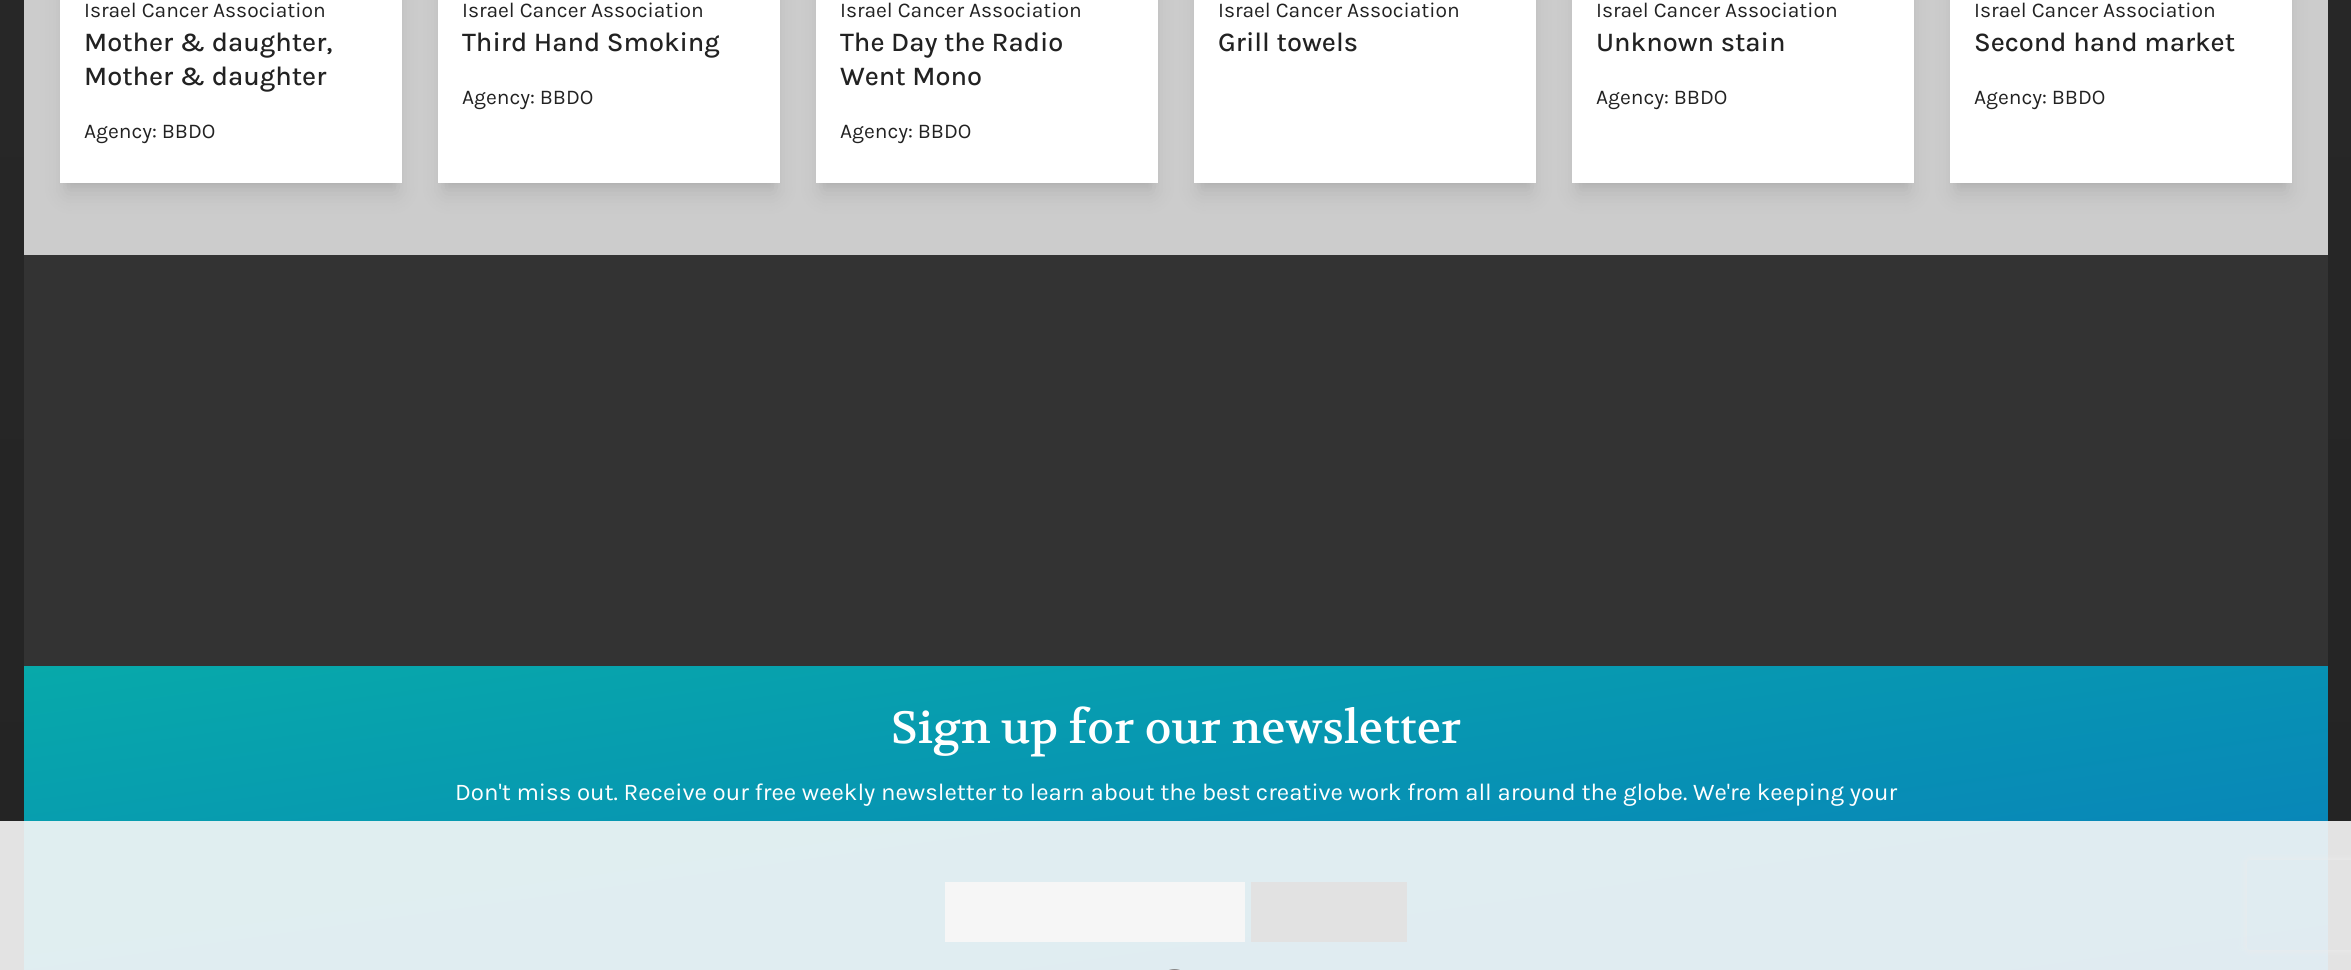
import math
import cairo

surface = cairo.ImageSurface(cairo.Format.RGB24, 2351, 970)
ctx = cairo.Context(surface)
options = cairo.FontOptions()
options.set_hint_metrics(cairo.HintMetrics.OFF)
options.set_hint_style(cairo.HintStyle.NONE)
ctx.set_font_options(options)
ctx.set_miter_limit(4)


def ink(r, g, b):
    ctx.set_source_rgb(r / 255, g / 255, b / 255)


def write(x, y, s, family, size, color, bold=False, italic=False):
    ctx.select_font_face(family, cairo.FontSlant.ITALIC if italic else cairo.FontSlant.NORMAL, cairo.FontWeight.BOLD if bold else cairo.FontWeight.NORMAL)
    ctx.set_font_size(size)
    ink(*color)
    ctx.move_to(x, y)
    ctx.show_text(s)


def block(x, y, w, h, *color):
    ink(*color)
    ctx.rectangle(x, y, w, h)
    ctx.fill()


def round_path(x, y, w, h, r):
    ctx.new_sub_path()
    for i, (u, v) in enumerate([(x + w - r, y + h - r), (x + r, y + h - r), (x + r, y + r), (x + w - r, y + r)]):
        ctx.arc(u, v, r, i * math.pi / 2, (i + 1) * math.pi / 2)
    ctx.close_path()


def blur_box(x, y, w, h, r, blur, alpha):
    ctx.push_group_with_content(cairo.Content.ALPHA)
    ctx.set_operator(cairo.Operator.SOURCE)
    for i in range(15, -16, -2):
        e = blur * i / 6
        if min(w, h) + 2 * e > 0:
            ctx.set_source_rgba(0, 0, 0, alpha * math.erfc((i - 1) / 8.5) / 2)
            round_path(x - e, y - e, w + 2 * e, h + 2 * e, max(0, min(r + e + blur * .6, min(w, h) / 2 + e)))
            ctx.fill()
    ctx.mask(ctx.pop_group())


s1 = dict(family="Karla", size=21, color=(34, 34, 34))
s2 = dict(family="Karla Medium", size=27, color=(34, 34, 34))
s3 = dict(family="Volkhov", size=45, color=(255, 255, 255))
s4 = dict(family="Karla", size=24, color=(255, 255, 255))

ink(255, 255, 255)
ctx.paint()
gradient = cairo.LinearGradient(1176, -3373, 1176, 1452)
gradient.add_color_stop_rgba(0, 0.2, 0.2, 0.2, 1)
gradient.add_color_stop_rgba(1, 0.133, 0.133, 0.133, 1)
ctx.set_source(gradient)
ctx.rectangle(0, 0, 2351, 970)
ctx.fill()
block(24, 0, 2304, 255, 204, 204, 204)
ink(0, 0, 0)
blur_box(66, -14, 330, 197, 0, 4.5, 0.1)
blur_box(65, -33, 333, 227, 0, 11, 0.1)
block(60, 0, 342, 183, 255, 255, 255)
write(84, 17, "Israel Cancer Association", **s1)
write(84, 51, "Mother & daughter,", **s2)
write(84, 85, "Mother & daughter", **s2)
write(84, 138, "Agency: BBDO", **s1)
ink(0, 0, 0)
blur_box(444, -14, 330, 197, 0, 4.5, 0.1)
blur_box(443, -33, 333, 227, 0, 11, 0.1)
block(438, 0, 342, 183, 255, 255, 255)
write(462, 17, "Israel Cancer Association", **s1)
write(462, 51, "Third Hand Smoking", **s2)
write(462, 104, "Agency: BBDO", **s1)
ink(0, 0, 0)
blur_box(822, -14, 330, 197, 0, 4.5, 0.1)
blur_box(821, -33, 333, 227, 0, 11, 0.1)
block(816, 0, 342, 183, 255, 255, 255)
write(840, 17, "Israel Cancer Association", **s1)
write(840, 51, "The Day the Radio", **s2)
write(840, 85, "Went Mono", **s2)
write(840, 138, "Agency: BBDO", **s1)
ink(0, 0, 0)
blur_box(1200, -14, 330, 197, 0, 4.5, 0.1)
blur_box(1199, -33, 333, 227, 0, 11, 0.1)
block(1194, 0, 342, 183, 255, 255, 255)
write(1218, 17, "Israel Cancer Association", **s1)
write(1218, 51, "Grill towels", **s2)
ink(0, 0, 0)
blur_box(1578, -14, 330, 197, 0, 4.5, 0.1)
blur_box(1577, -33, 333, 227, 0, 11, 0.1)
block(1572, 0, 342, 183, 255, 255, 255)
write(1596, 17, "Israel Cancer Association", **s1)
write(1596, 51, "Unknown stain", **s2)
write(1596, 104, "Agency: BBDO", **s1)
ink(0, 0, 0)
blur_box(1956, -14, 330, 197, 0, 4.5, 0.1)
blur_box(1955, -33, 333, 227, 0, 11, 0.1)
block(1950, 0, 342, 183, 255, 255, 255)
write(1974, 17, "Israel Cancer Association", **s1)
write(1974, 51, "Second hand market", **s2)
write(1974, 104, "Agency: BBDO", **s1)
block(24, 255, 2304, 411, 51, 51, 51)
gradient = cairo.LinearGradient(1131, 510, 1221, 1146)
gradient.add_color_stop_rgba(0, 0.027, 0.663, 0.667, 1)
gradient.add_color_stop_rgba(1, 0.031, 0.482, 0.741, 1)
ctx.set_source(gradient)
ctx.rectangle(24, 666, 2304, 304)
ctx.fill()
write(891, 743, "Sign up for our newsletter", **s3)
write(455, 800, "Don't miss out. Receive our free weekly newsletter to learn about the best creative work from all around the globe. We're keeping your", **s4)
block(945, 882, 300, 60, 238, 238, 238)
block(1251, 882, 156, 60, 34, 34, 34)
ctx.save()
ctx.set_fill_rule(cairo.FillRule.EVEN_ODD)
ctx.new_path()
ctx.move_to(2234, 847)
ctx.line_to(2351, 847)
ctx.line_to(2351, 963)
ctx.line_to(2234, 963)
ctx.close_path()
ctx.move_to(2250, 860)
ctx.line_to(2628, 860)
ctx.curve_to(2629.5, 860, 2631, 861.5, 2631, 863)
ctx.line_to(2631, 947)
ctx.curve_to(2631, 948.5, 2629.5, 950, 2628, 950)
ctx.line_to(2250, 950)
ctx.curve_to(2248.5, 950, 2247, 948.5, 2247, 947)
ctx.line_to(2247, 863)
ctx.curve_to(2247, 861.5, 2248.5, 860, 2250, 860)
ctx.close_path()
ctx.clip()
ink(128, 128, 128)
blur_box(2247, 860, 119, 90, 3, 4, 1)
ctx.restore()
ctx.set_source_rgba(0.969, 0.969, 0.969, 0.9)
ctx.rectangle(0, 821, 2351, 149)
ctx.fill()
round_path(1159, 970, 31, 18, 15.5)
ink(241, 244, 245)
ctx.stroke()
round_path(1159, 970, 31, 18, 15.5)
ink(136, 136, 136)
ctx.stroke()
surface.write_to_png("screenshot.png")
